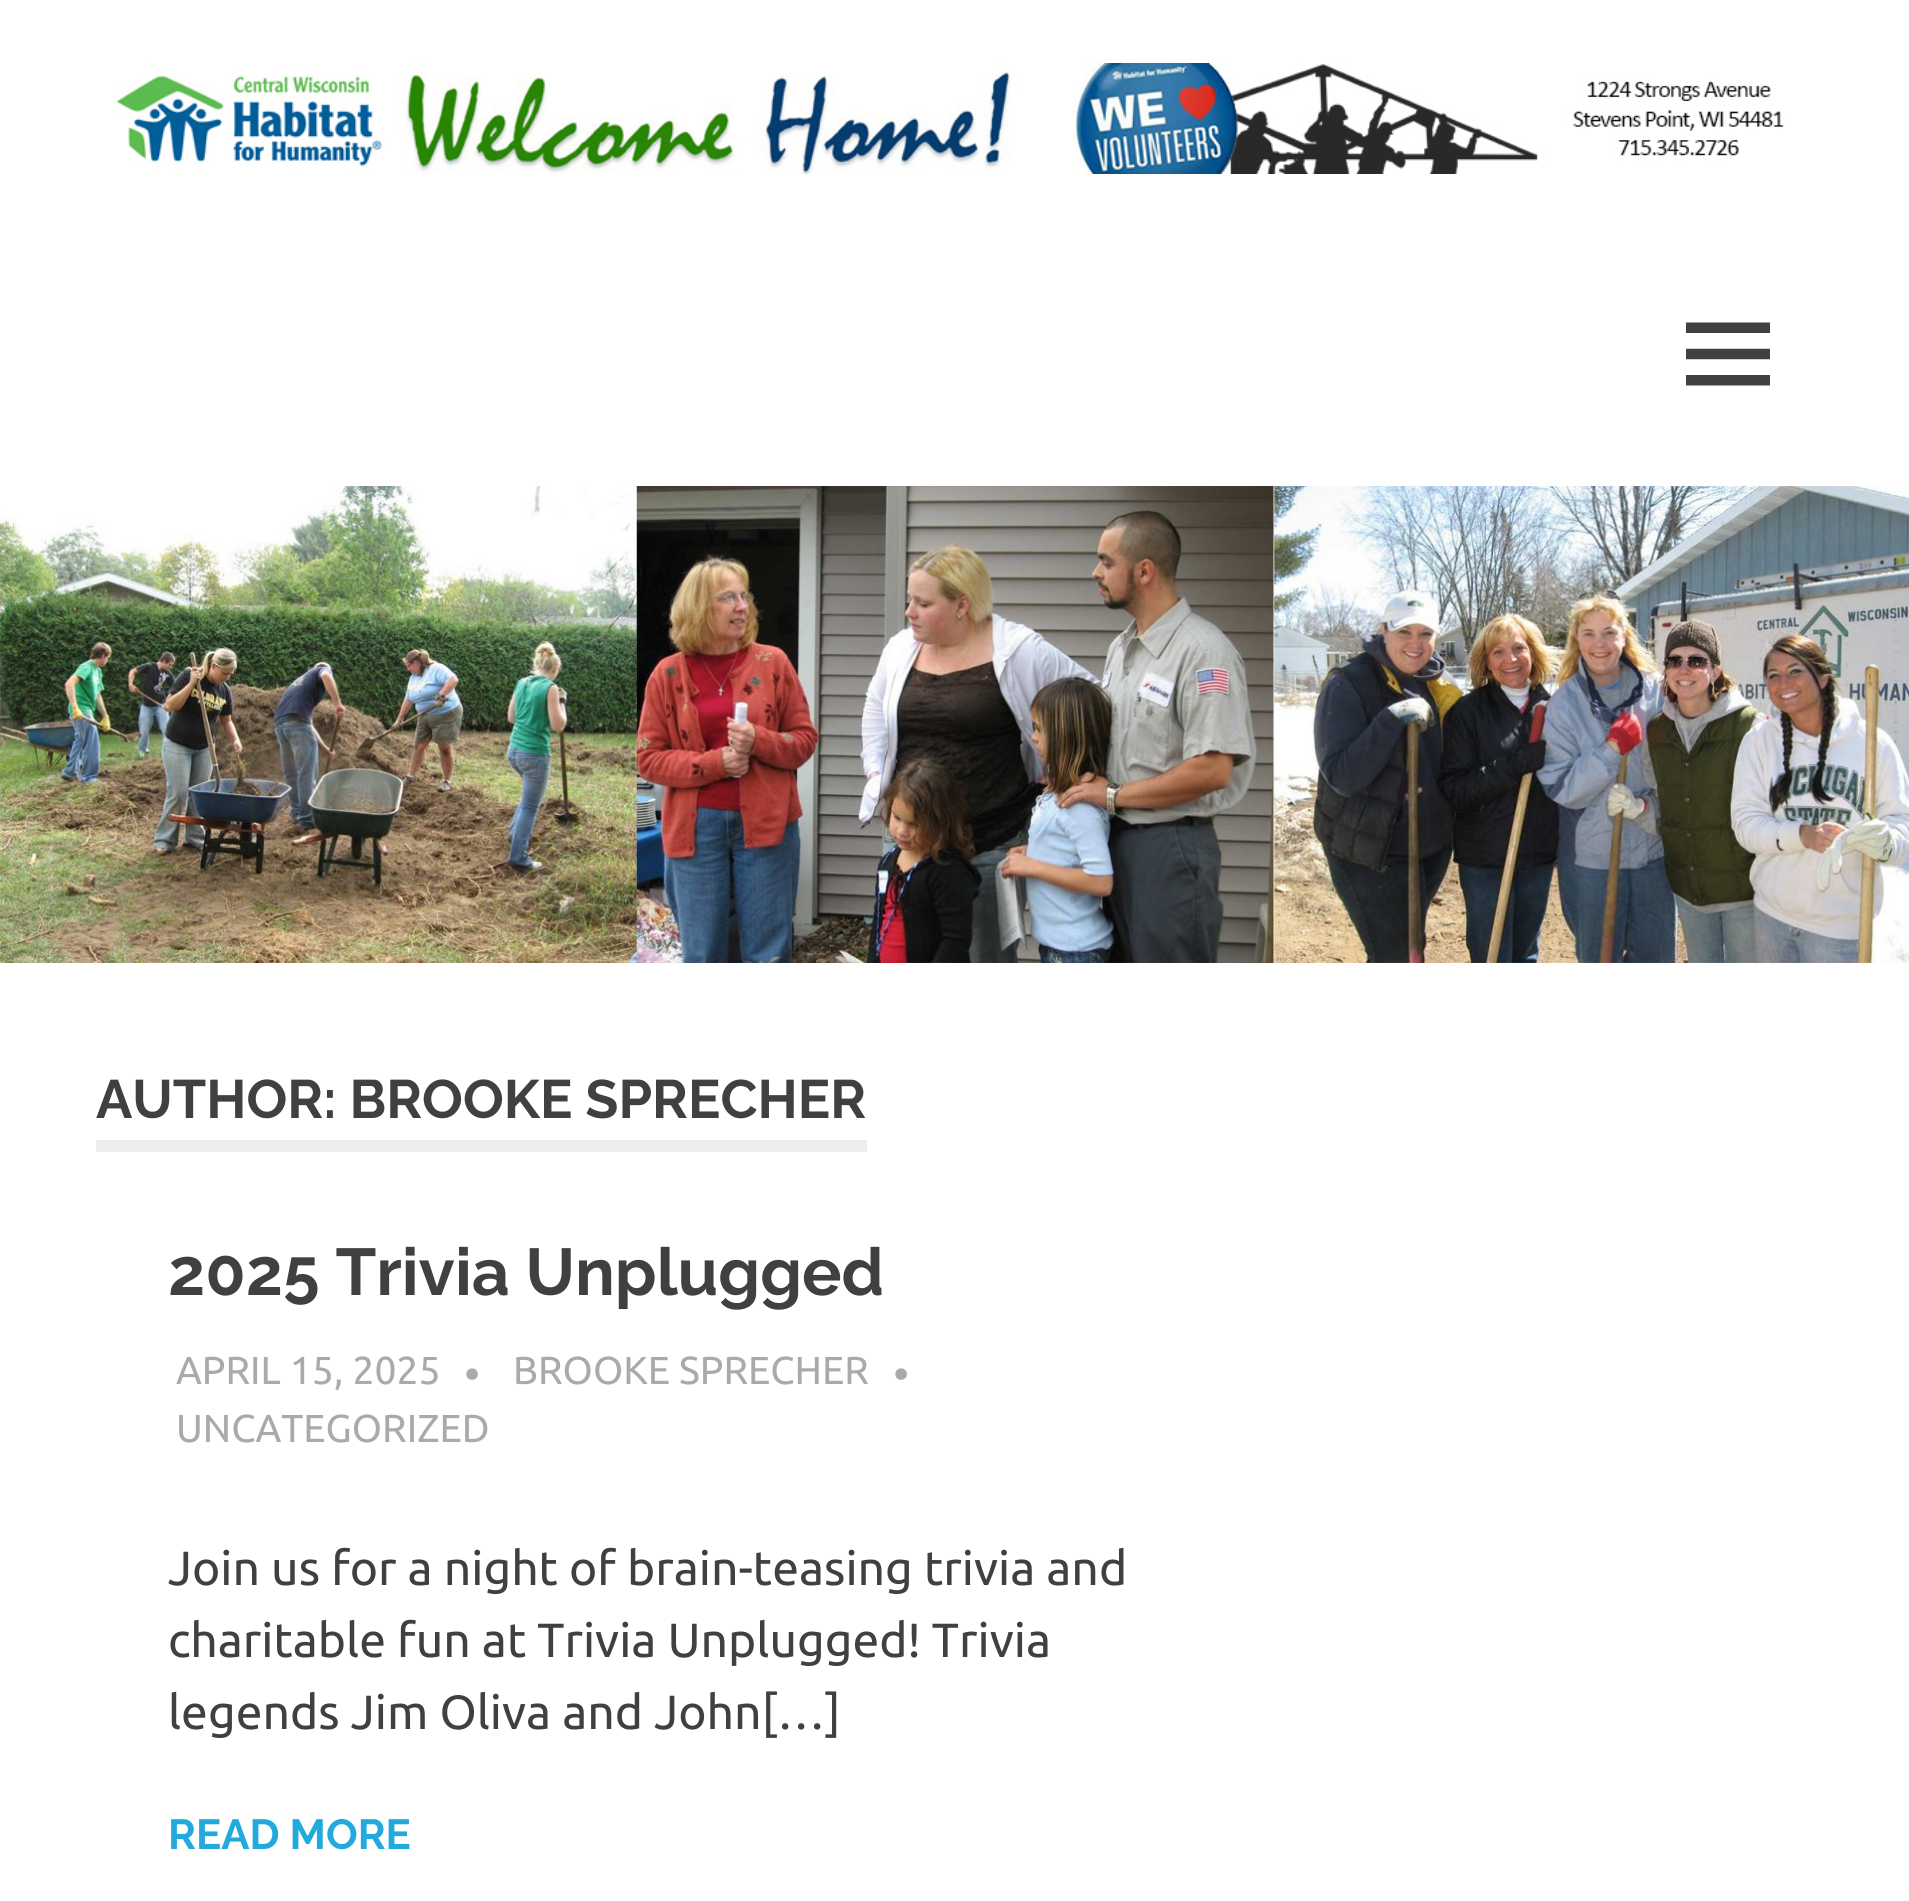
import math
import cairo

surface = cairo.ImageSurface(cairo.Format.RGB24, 1909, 1901)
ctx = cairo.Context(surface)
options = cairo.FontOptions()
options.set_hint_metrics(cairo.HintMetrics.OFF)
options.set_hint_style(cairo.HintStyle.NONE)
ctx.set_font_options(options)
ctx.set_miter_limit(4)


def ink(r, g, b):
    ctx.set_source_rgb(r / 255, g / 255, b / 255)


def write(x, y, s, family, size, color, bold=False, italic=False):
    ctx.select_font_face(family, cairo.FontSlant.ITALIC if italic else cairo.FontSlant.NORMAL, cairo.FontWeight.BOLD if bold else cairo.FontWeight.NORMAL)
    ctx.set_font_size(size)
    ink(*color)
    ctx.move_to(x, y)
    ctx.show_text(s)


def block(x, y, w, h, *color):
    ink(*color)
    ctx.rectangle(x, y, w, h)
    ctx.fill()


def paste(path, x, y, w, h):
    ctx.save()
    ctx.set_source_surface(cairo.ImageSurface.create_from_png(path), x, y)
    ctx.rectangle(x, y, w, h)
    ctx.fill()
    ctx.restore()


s1 = dict(family="Raleway Thin", size=54, color=(64, 64, 64))
s2 = dict(family="Raleway Thin", size=66, color=(64, 64, 64))
s3 = dict(family="Ubuntu", size=39, color=(170, 170, 170))
s4 = dict(family="Ubuntu", size=45, color=(170, 170, 170))
s5 = dict(family="Ubuntu", size=48, color=(64, 64, 64))
s6 = dict(family="Raleway Thin", size=42, color=(34, 170, 221))

ink(255, 255, 255)
ctx.paint()
paste("pic1.png", 116, 63, 1669, 111)
paste("pic2.png", 1686, 322, 84, 64)
paste("pic3.png", 0, 486, 1909, 477)
block(96, 1140, 771, 12, 238, 238, 238)
write(96, 1118, "AUTHOR: BROOKE SPRECHER", **s1)
write(168, 1295, "2025 Trivia Unplugged", **s2)
write(176, 1384, "APRIL 15, 2025", **s3)
write(464, 1390, "•", **s4)
write(513, 1384, "BROOKE SPRECHER", **s3)
write(893, 1390, "•", **s4)
write(176, 1442, "UNCATEGORIZED", **s3)
write(168, 1585, "Join us for a night of brain-teasing trivia and", **s5)
write(168, 1657, "charitable fun at Trivia Unplugged! Trivia", **s5)
write(168, 1729, "legends Jim Oliva and John[…]", **s5)
write(168, 1849, "READ MORE", **s6)
surface.write_to_png("screenshot.png")
